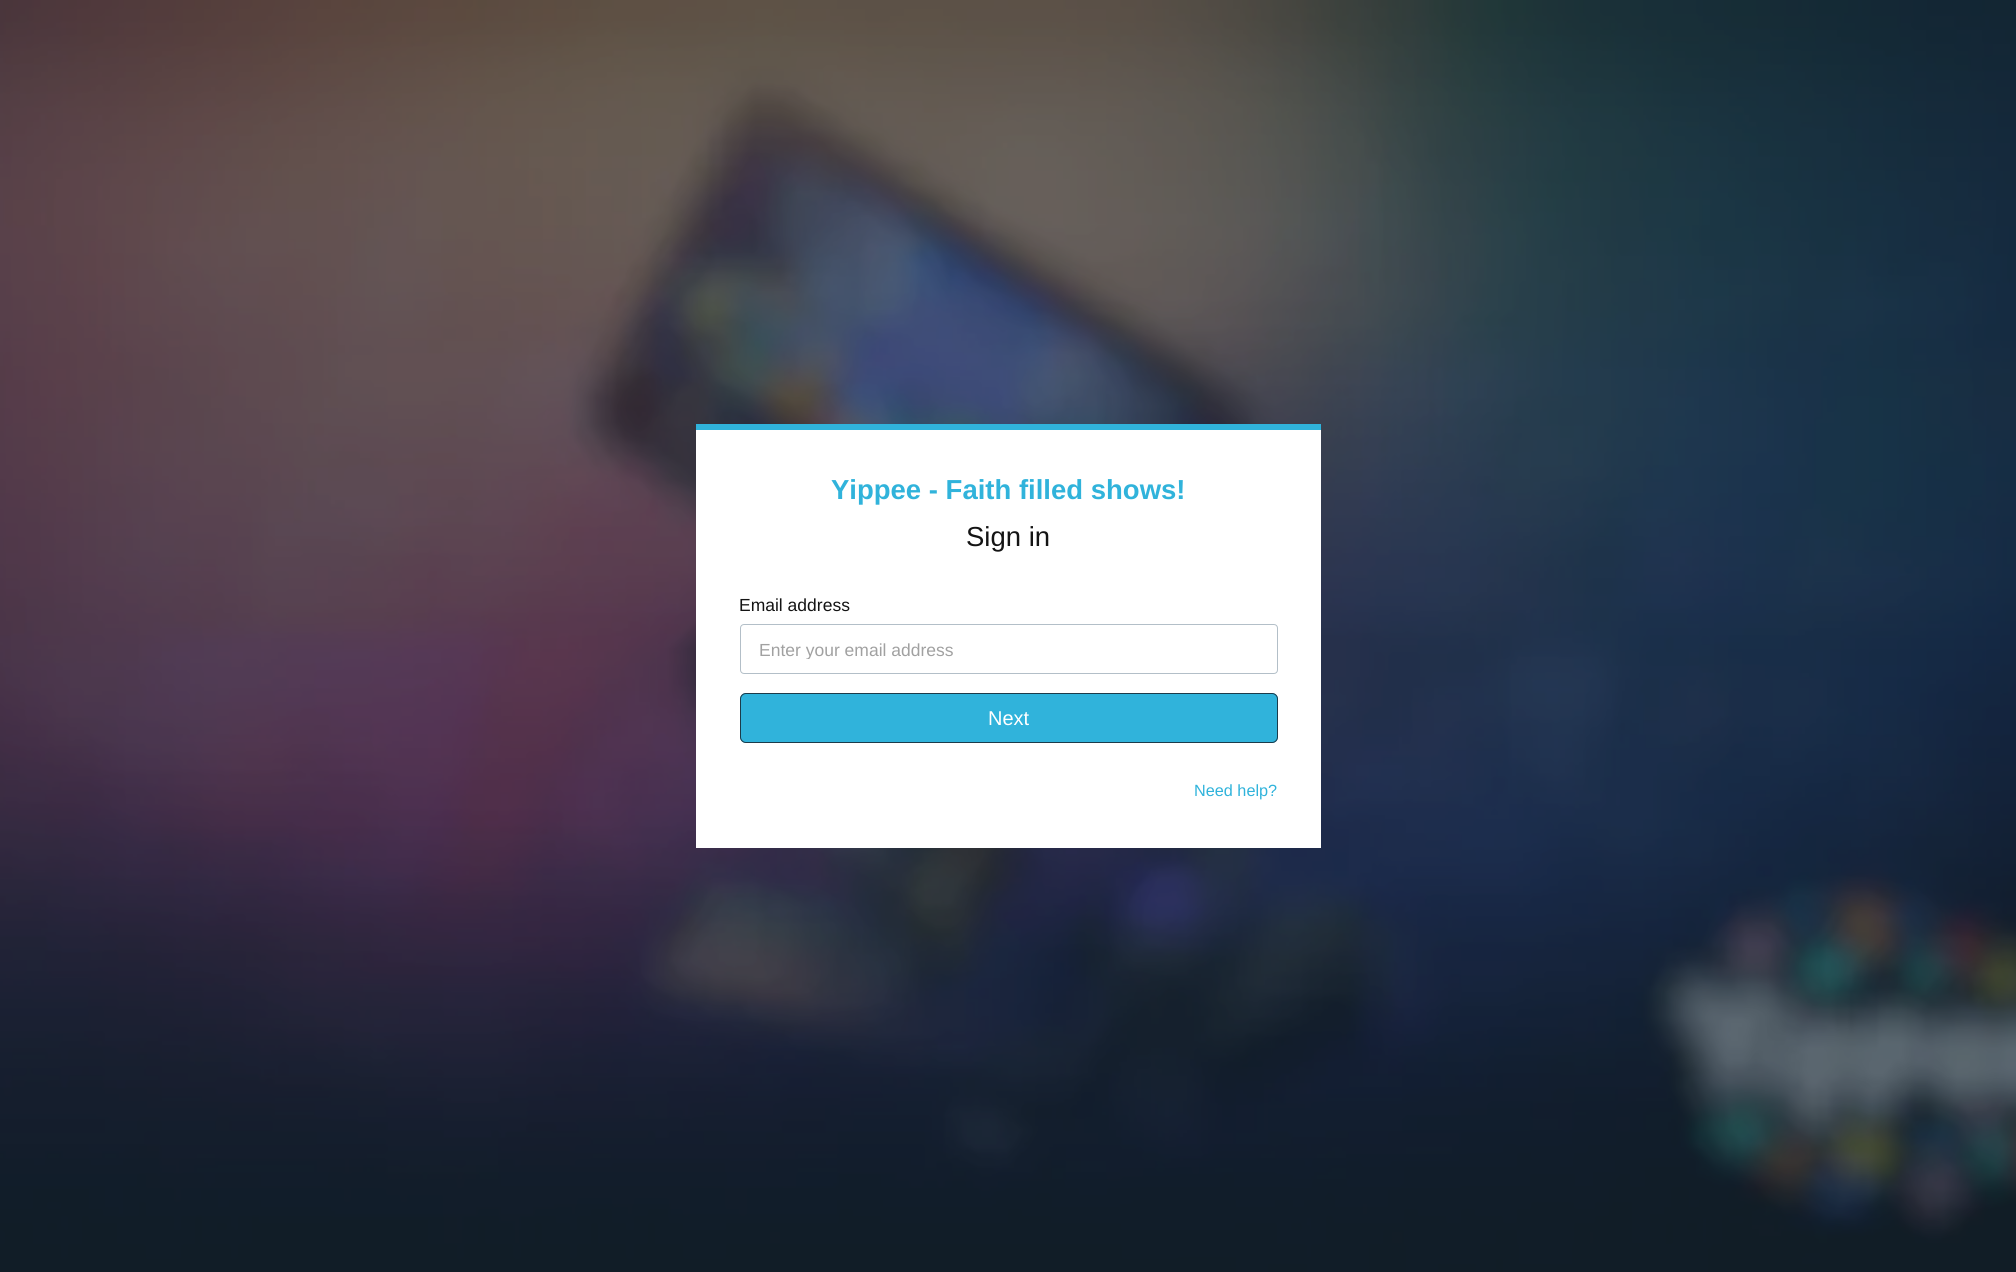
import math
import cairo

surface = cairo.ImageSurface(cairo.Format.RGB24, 2016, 1272)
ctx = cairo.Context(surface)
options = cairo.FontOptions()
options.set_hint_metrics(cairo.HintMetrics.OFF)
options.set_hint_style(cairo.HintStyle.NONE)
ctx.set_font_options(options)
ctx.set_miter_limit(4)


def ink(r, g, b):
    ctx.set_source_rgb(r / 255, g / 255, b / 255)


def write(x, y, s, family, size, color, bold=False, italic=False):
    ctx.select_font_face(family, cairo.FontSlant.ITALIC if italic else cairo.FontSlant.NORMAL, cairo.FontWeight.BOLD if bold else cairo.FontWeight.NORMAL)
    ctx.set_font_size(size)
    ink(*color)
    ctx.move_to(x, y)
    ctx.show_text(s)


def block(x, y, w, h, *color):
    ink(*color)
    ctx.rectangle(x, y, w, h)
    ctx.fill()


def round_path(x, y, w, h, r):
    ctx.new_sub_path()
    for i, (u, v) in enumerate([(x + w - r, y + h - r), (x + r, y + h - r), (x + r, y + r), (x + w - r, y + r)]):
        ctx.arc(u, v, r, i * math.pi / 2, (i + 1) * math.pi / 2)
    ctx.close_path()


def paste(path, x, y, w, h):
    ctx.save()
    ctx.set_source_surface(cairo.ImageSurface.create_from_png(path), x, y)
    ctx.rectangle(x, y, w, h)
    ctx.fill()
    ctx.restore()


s1 = dict(family="Liberation Sans", size=27.5, color=(48, 179, 219), bold=True)
s2 = dict(family="Liberation Sans", size=27.5, color=(20, 20, 20))
s3 = dict(family="Liberation Sans", size=17.5, color=(20, 20, 20))
s4 = dict(family="Liberation Sans", size=17.5, color=(161, 161, 161))
s5 = dict(family="Liberation Sans", size=20, color=(255, 255, 255))
s6 = dict(family="Liberation Sans", size=16.25, color=(48, 179, 219))

ink(26, 46, 59)
ctx.paint()
paste("pic1.png", 0, 0, 2016, 1272)
block(696, 430, 625, 418, 255, 255, 255)
block(696, 424, 625, 6, 48, 179, 219)
write(831, 499, "Yippee - Faith filled shows!", **s1)
write(966, 546, "Sign in", **s2)
write(739, 611, "Email address", **s3)
round_path(740.5, 624.5, 537, 49, 3.5)
ink(179, 191, 200)
ctx.set_line_width(1)
ctx.stroke()
ctx.save()
ctx.rectangle(760, 639, 498, 20)
ctx.clip()
write(759, 656, "Enter your email address", **s4)
ctx.restore()
ink(48, 179, 219)
round_path(740, 693, 538, 50, 6)
ctx.fill()
round_path(740.5, 693.5, 537, 49, 5.5)
ctx.set_source_rgba(0.102, 0.18, 0.231, 0.9)
ctx.stroke()
write(988, 725, "Next", **s5)
write(1194, 796, "Need help?", **s6)
surface.write_to_png("screenshot.png")
